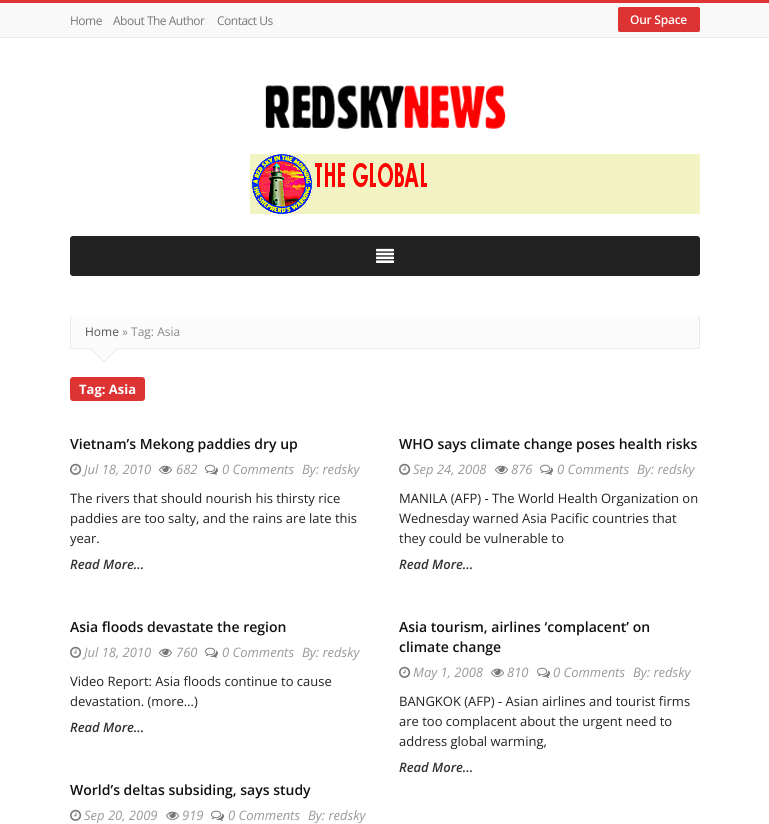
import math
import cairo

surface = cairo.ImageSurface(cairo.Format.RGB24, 769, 824)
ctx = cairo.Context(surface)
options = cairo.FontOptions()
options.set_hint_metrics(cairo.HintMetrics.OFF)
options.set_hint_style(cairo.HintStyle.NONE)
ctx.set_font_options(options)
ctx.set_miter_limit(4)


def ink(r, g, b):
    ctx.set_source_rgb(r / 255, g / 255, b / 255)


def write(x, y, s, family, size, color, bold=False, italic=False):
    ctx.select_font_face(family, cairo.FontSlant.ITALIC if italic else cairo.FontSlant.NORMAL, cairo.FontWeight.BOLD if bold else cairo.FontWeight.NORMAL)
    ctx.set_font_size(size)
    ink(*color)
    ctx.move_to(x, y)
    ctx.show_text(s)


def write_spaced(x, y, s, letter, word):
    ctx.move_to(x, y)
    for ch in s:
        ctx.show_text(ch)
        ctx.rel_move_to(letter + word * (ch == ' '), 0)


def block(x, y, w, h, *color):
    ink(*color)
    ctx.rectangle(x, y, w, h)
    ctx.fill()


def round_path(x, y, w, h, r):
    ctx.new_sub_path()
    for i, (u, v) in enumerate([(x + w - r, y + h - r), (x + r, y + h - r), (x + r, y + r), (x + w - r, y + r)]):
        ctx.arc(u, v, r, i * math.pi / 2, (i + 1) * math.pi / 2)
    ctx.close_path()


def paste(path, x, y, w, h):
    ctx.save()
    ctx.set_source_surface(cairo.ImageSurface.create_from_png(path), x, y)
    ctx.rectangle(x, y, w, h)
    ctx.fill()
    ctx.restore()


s1 = dict(family="Open Sans", size=12, color=(85, 85, 85))
s2 = dict(family="Open Sans", size=12, color=(136, 136, 136))
s3 = dict(family="Open Sans", size=13, color=(255, 255, 255), bold=True)
s4 = dict(family="Open Sans SemiBold", size=14, color=(17, 17, 17))
s5 = dict(family="Open Sans", size=13, color=(153, 153, 153), italic=True)
s6 = dict(family="Open Sans", size=13, color=(34, 34, 34))
s7 = dict(family="Open Sans SemiBold", size=13, color=(51, 51, 51), italic=True)

ink(255, 255, 255)
ctx.paint()
block(0, 0, 769, 3, 221, 51, 51)
block(0, 3, 769, 34, 249, 249, 249)
block(0, 37, 769, 1, 236, 236, 236)
ctx.select_font_face("Open Sans")
ctx.set_font_size(12)
ink(119, 119, 119)
write_spaced(70, 25, "Home", -0.5, 0)
write_spaced(113, 25, "About The Author", -0.5, 0)
write_spaced(217, 25, "Contact Us", -0.5, 0)
ink(221, 51, 51)
round_path(618, 7, 82, 25, 2)
ctx.fill()
ctx.select_font_face("Open Sans SemiBold")
ink(255, 255, 255)
write_spaced(630, 24, "Our Space", -0.25, 0)
paste("pic1.png", 265, 85, 241, 44)
paste("pic2.png", 250, 154, 450, 60)
ink(34, 34, 34)
round_path(70, 236, 630, 40, 3)
ctx.fill()
paste("pic3.png", 376, 248, 18, 15)
block(71, 316, 628, 32, 251, 251, 251)
block(699, 316, 1, 33, 234, 234, 234)
block(70, 348, 630, 1, 234, 234, 234)
block(70, 316, 1, 33, 234, 234, 234)
write(85, 336, "Home", **s1)
write(122, 336, "» Tag: Asia", **s2)
ink(239, 239, 239)
ctx.new_path()
ctx.move_to(89, 348)
ctx.line_to(119, 348)
ctx.line_to(104, 363)
ctx.close_path()
ctx.fill()
ink(251, 251, 251)
ctx.new_path()
ctx.move_to(89, 346)
ctx.line_to(119, 346)
ctx.line_to(104, 361)
ctx.close_path()
ctx.fill()
ink(221, 51, 51)
round_path(70, 377, 75, 24, 3)
ctx.fill()
write(79, 394, "Tag: Asia", **s3)
write(70, 449, "Vietnam’s Mekong paddies dry up", **s4)
paste("pic4.png", 70, 463, 12, 12)
write(84, 474, "Jul 18, 2010", **s5)
paste("pic5.png", 159, 465, 13, 9)
write(176, 474, "682", **s5)
paste("pic6.png", 205, 464, 13, 11)
write(222, 474, "0 Comments", **s5)
write(302, 474, "By: redsky", **s5)
write(70, 503, "The rivers that should nourish his thirsty rice", **s6)
write(70, 523, "paddies are too salty, and the rains are late this", **s6)
write(70, 543, "year.", **s6)
write(70, 569, "Read More...", **s7)
write(70, 632, "Asia floods devastate the region", **s4)
paste("pic4.png", 70, 646, 12, 12)
write(84, 657, "Jul 18, 2010", **s5)
paste("pic5.png", 159, 648, 13, 9)
write(176, 657, "760", **s5)
paste("pic6.png", 205, 647, 13, 11)
write(222, 657, "0 Comments", **s5)
write(302, 657, "By: redsky", **s5)
write(70, 686, "Video Report: Asia floods continue to cause", **s6)
write(70, 706, "devastation. (more…)", **s6)
write(70, 732, "Read More...", **s7)
write(70, 795, "World’s deltas subsiding, says study", **s4)
paste("pic4.png", 70, 809, 12, 12)
write(84, 820, "Sep 20, 2009", **s5)
paste("pic5.png", 166, 811, 13, 9)
write(182, 820, "919", **s5)
paste("pic6.png", 211, 810, 13, 11)
write(228, 820, "0 Comments", **s5)
write(308, 820, "By: redsky", **s5)
write(399, 449, "WHO says climate change poses health risks", **s4)
paste("pic4.png", 399, 463, 12, 12)
write(413, 474, "Sep 24, 2008", **s5)
paste("pic5.png", 495, 465, 13, 9)
write(511, 474, "876", **s5)
paste("pic6.png", 540, 464, 13, 11)
write(557, 474, "0 Comments", **s5)
write(637, 474, "By: redsky", **s5)
write(399, 503, "MANILA (AFP) - The World Health Organization on", **s6)
write(399, 523, "Wednesday warned Asia Pacific countries that", **s6)
write(399, 543, "they could be vulnerable to", **s6)
write(399, 569, "Read More...", **s7)
write(399, 632, "Asia tourism, airlines ‘complacent’ on", **s4)
write(399, 652, "climate change", **s4)
paste("pic4.png", 399, 666, 12, 12)
write(413, 677, "May 1, 2008", **s5)
paste("pic5.png", 491, 668, 13, 9)
write(507, 677, "810", **s5)
paste("pic6.png", 537, 667, 13, 11)
write(553, 677, "0 Comments", **s5)
write(633, 677, "By: redsky", **s5)
write(399, 706, "BANGKOK (AFP) - Asian airlines and tourist firms", **s6)
write(399, 726, "are too complacent about the urgent need to", **s6)
write(399, 746, "address global warming,", **s6)
write(399, 772, "Read More...", **s7)
surface.write_to_png("screenshot.png")
